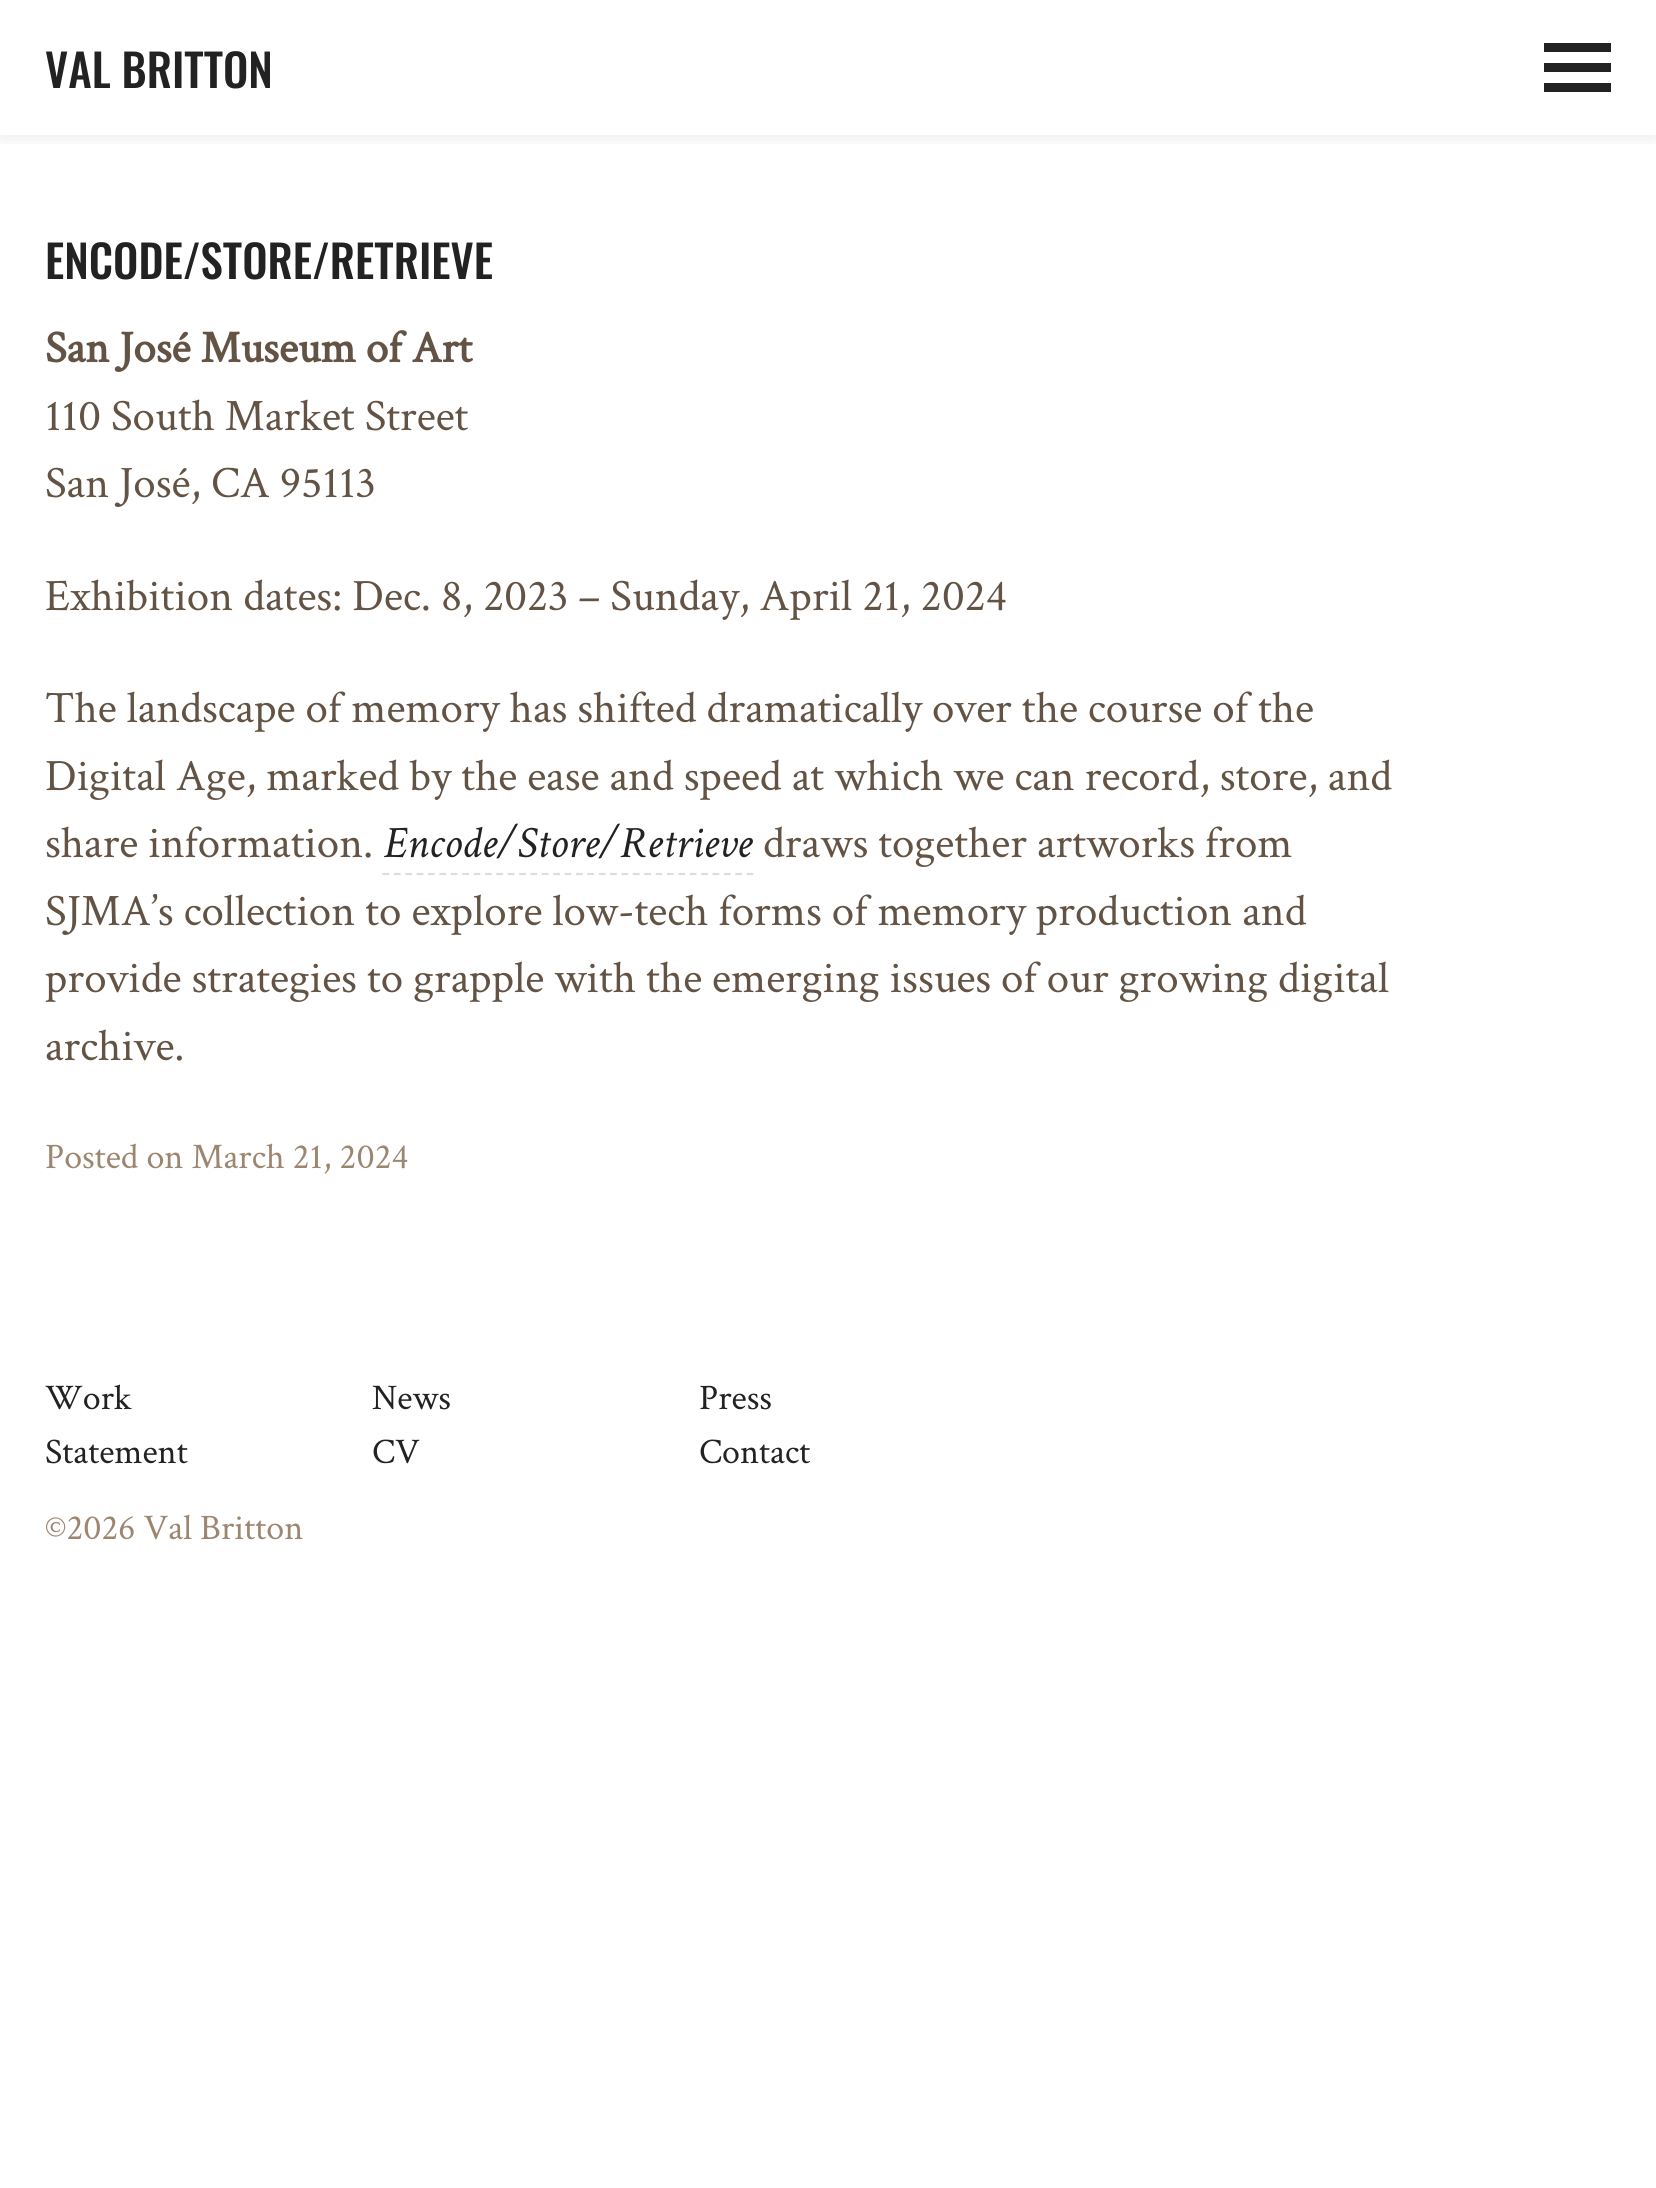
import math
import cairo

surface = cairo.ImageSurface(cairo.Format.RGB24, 1656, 2188)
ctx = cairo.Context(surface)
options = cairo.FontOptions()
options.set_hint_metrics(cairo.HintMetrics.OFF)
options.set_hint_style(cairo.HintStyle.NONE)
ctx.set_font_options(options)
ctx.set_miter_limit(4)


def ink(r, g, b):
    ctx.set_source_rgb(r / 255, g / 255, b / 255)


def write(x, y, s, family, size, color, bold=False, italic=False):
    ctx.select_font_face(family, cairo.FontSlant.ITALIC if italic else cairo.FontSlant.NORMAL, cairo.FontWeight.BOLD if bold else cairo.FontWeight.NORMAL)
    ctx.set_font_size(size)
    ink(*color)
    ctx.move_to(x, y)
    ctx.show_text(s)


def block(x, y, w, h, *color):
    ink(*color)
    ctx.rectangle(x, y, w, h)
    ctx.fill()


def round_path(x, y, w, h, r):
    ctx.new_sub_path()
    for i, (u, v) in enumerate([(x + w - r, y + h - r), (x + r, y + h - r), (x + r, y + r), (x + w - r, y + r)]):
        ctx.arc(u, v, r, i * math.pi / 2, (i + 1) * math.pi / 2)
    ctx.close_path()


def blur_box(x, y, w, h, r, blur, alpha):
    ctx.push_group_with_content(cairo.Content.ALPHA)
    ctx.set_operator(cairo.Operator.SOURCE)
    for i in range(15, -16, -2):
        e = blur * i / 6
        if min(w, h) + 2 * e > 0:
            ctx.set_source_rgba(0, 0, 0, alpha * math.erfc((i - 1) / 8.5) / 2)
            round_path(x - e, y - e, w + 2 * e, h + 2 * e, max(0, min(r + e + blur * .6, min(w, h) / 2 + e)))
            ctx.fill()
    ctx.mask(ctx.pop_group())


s1 = dict(family="Oswald Medium", size=45, color=(34, 34, 34))
s2 = dict(family="Crimson Text", size=45, color=(99, 83, 68), bold=True)
s3 = dict(family="Crimson Text", size=45, color=(99, 83, 68))
s4 = dict(family="Crimson Text", size=45, color=(34, 34, 34), italic=True)
s5 = dict(family="Crimson Text", size=36, color=(157, 134, 112))
s6 = dict(family="Crimson Text", size=36, color=(34, 34, 34))

ink(255, 255, 255)
ctx.paint()
ctx.save()
ctx.rectangle(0, 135, 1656, 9)
ctx.clip()
ink(0, 0, 0)
blur_box(0, 0, 1656, 135, 0, 11, 0.1)
ctx.restore()
write(45, 88, "VAL BRITTON", **s1)
block(1544, 43, 67, 9, 34, 34, 34)
block(1544, 63, 67, 9, 34, 34, 34)
block(1544, 83, 67, 9, 34, 34, 34)
write(45, 279, "ENCODE/STORE/RETRIEVE", **s1)
write(45, 362, "San José Museum of Art", **s2)
write(45, 430, "110 South Market Street", **s3)
write(45, 497, "San José, CA 95113", **s3)
write(45, 610, "Exhibition dates: Dec. 8, 2023 – Sunday, April 21, 2024", **s3)
write(45, 722, "The landscape of memory has shifted dramatically over the course of the", **s3)
write(45, 790, "Digital Age, marked by the ease and speed at which we can record, store, and", **s3)
write(45, 857, "share information.", **s3)
write(383, 857, "Encode/Store/Retrieve", **s4)
ctx.new_path()
ctx.move_to(382.5, 874)
ctx.line_to(754, 874)
ink(221, 221, 221)
ctx.set_line_width(2.2)
ctx.set_dash([6.75, 4.63])
ctx.stroke()
write(763, 857, "draws together artworks from", **s3)
write(45, 925, "SJMA’s collection to explore low-tech forms of memory production and", **s3)
write(45, 992, "provide strategies to grapple with the emerging issues of our growing digital", **s3)
write(45, 1060, "archive.", **s3)
write(45, 1168, "Posted on March 21, 2024", **s5)
write(45, 1409, "Work", **s6)
write(372, 1409, "News", **s6)
write(699, 1409, "Press", **s6)
write(45, 1463, "Statement", **s6)
write(372, 1463, "CV", **s6)
write(699, 1463, "Contact", **s6)
write(45, 1539, "©2026 Val Britton", **s5)
surface.write_to_png("screenshot.png")
